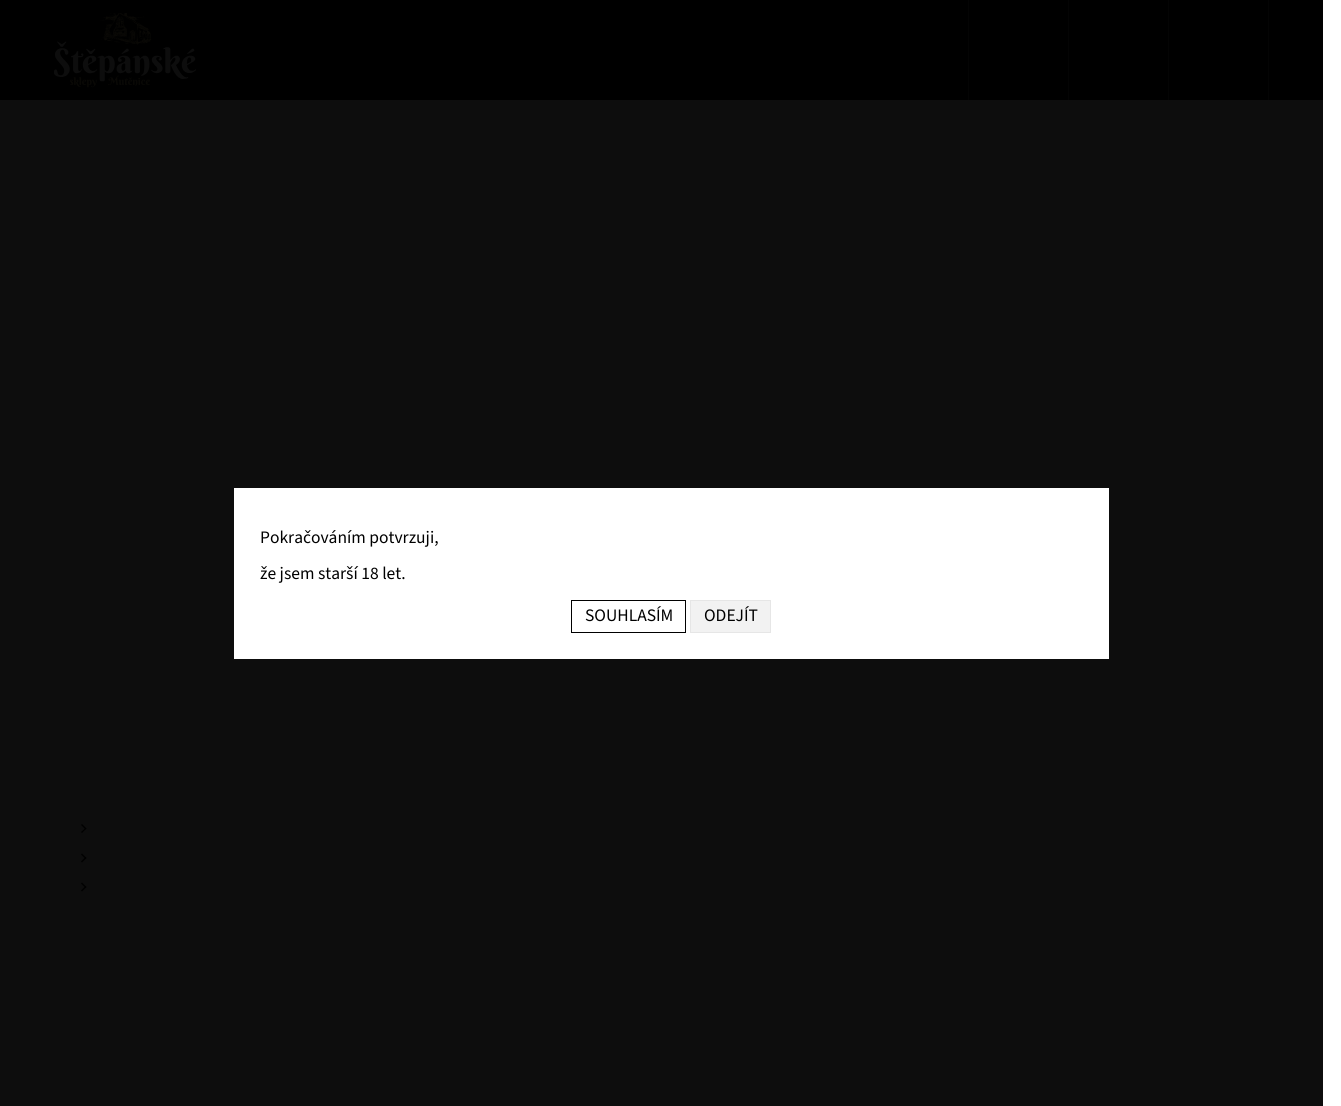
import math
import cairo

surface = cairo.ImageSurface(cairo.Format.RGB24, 1341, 1106)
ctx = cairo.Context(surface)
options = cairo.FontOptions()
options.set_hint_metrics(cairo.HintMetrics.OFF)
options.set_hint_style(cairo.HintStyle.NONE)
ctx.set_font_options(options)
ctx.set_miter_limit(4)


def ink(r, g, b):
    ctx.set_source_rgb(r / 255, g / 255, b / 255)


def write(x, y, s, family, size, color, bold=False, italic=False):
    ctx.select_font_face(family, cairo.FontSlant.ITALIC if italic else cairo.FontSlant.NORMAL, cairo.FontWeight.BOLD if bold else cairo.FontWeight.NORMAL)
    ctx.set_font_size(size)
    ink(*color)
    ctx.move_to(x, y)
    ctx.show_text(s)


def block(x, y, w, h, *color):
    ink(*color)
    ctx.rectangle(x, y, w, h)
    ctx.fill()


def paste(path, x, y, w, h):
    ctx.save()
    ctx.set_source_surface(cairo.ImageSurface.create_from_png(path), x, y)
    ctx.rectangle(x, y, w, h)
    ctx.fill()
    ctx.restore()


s1 = dict(family="Source Sans 3", size=17.5, color=(0, 0, 0))

ink(255, 255, 255)
ctx.paint()
block(0, 100, 1323, 1006, 13, 13, 13)
block(0, 0, 1323, 100, 0, 0, 0)
paste("pic1.png", 54, 13, 142, 75)
block(1268, 0, 1, 100, 4, 4, 4)
block(968, 0, 1, 100, 4, 4, 4)
block(1068, 0, 1, 100, 4, 4, 4)
block(1168, 0, 1, 100, 4, 4, 4)
ink(0, 0, 0)
ctx.new_path()
ctx.move_to(81, 825)
ctx.line_to(82, 824)
ctx.line_to(86.5, 828.5)
ctx.line_to(85.5, 829.5)
ctx.close_path()
ctx.fill()
ctx.new_path()
ctx.move_to(81, 832)
ctx.line_to(85.5, 828)
ctx.line_to(86.5, 828.5)
ctx.line_to(82, 833)
ctx.close_path()
ctx.move_to(81, 854.5)
ctx.line_to(82, 853.5)
ctx.line_to(86.5, 858)
ctx.line_to(85.5, 859)
ctx.close_path()
ctx.fill()
ctx.new_path()
ctx.move_to(81, 861.5)
ctx.line_to(85.5, 857)
ctx.line_to(86.5, 858)
ctx.line_to(82, 862.5)
ctx.close_path()
ctx.move_to(81, 883.5)
ctx.line_to(82, 882.5)
ctx.line_to(86.5, 887)
ctx.line_to(85.5, 888)
ctx.close_path()
ctx.fill()
ctx.new_path()
ctx.move_to(81, 890.5)
ctx.line_to(85.5, 886)
ctx.line_to(86.5, 887)
ctx.line_to(82, 891.5)
ctx.close_path()
ctx.fill()
block(234, 488, 875, 171, 255, 255, 255)
write(260, 543, "Pokračováním potvrzuji,", **s1)
write(260, 579, "že jsem starší 18 let.", **s1)
ctx.rectangle(571.5, 600.5, 114, 32)
ctx.set_line_width(1)
ctx.stroke()
write(585, 621, "SOUHLASÍM", **s1)
ink(242, 242, 242)
ctx.rectangle(690.5, 600.5, 80, 32)
ctx.fill_preserve()
ink(230, 230, 230)
ctx.stroke()
write(704, 621, "ODEJÍT", **s1)
surface.write_to_png("screenshot.png")
